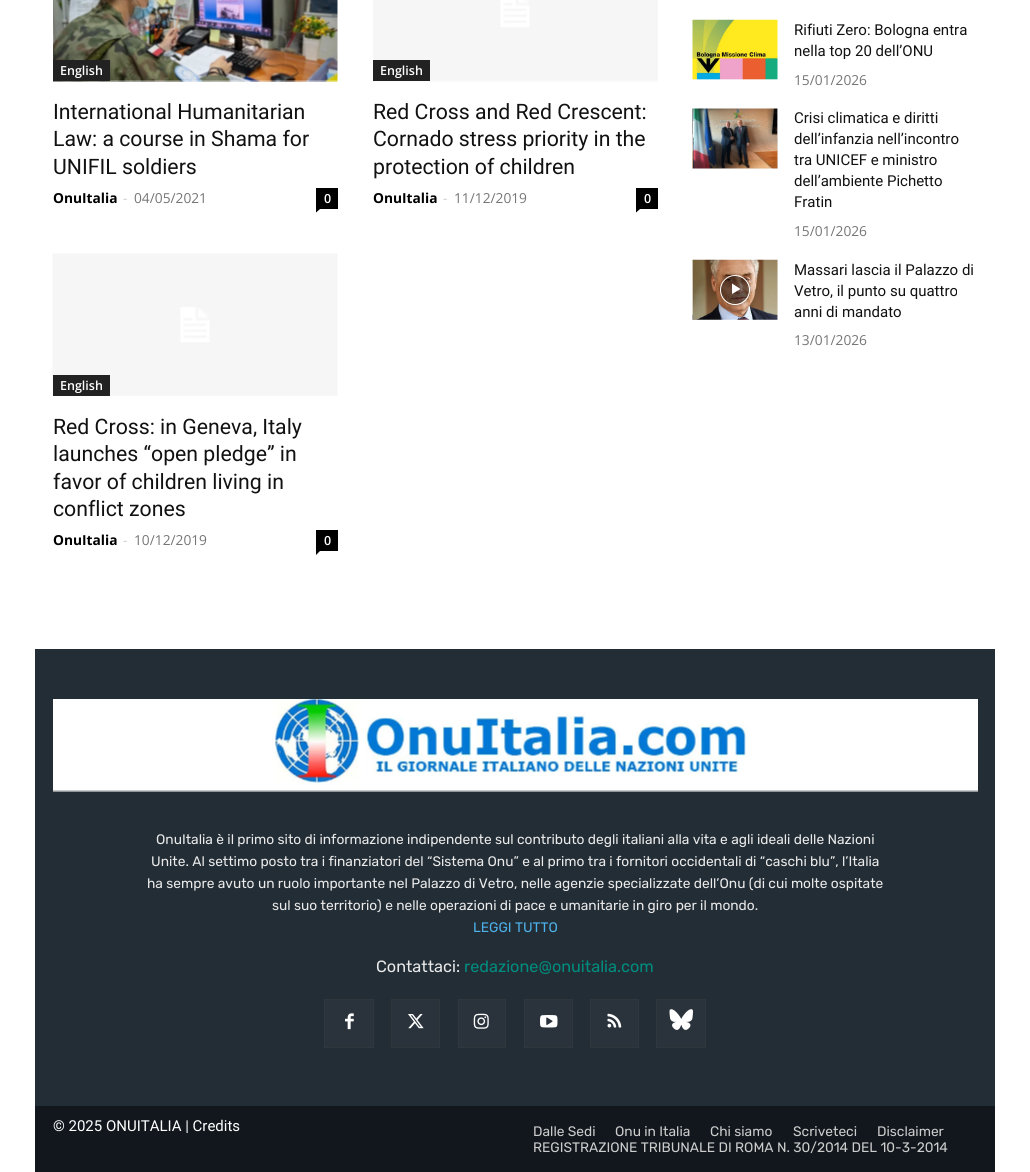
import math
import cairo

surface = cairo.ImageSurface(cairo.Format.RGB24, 1030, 1172)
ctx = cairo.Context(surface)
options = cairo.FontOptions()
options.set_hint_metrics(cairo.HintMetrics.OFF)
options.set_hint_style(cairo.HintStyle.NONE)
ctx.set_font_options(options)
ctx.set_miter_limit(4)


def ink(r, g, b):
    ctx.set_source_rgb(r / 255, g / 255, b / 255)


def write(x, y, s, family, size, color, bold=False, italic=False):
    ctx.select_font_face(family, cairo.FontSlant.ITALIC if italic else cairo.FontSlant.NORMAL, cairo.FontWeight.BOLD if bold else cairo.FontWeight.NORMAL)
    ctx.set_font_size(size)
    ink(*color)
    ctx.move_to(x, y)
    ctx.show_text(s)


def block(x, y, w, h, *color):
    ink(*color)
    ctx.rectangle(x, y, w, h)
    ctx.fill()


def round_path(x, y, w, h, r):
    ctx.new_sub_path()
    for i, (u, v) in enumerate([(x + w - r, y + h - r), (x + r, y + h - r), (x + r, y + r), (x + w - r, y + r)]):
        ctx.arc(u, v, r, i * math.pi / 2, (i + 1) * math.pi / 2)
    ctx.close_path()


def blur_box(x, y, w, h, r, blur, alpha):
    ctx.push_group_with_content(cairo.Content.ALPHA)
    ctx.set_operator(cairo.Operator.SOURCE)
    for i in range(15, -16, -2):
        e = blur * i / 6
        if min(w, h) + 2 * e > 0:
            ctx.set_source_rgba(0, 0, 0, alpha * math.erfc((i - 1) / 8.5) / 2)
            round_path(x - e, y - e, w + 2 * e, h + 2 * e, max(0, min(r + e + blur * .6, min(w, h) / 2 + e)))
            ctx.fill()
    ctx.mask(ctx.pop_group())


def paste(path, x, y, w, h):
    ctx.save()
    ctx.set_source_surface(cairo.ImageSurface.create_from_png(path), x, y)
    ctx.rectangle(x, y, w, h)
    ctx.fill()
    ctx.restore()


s1 = dict(family="Open Sans SemiBold", size=12.5, color=(255, 255, 255))
s2 = dict(family="Roboto", size=21.25, color=(17, 17, 17))
s3 = dict(family="Open Sans", size=13.75, color=(0, 0, 0), bold=True)
s4 = dict(family="Open Sans", size=13.75, color=(204, 204, 204))
s5 = dict(family="Open Sans", size=13.75, color=(118, 118, 118))
s6 = dict(family="Roboto", size=15, color=(17, 17, 17))
s7 = dict(family="Rubik Light", size=13.75, color=(234, 234, 234))
s8 = dict(family="Rubik Light", size=13.75, color=(77, 178, 236))
s9 = dict(family="Rubik Light", size=16.25, color=(234, 234, 234))
s10 = dict(family="Rubik Light", size=16.25, color=(0, 141, 127))
s11 = dict(family="Roboto", size=15, color=(255, 255, 255))
s12 = dict(family="Rubik Light", size=13.75, color=(204, 204, 204))

ink(255, 255, 255)
ctx.paint()
paste("pic1.png", 53, 0, 285, 82)
block(53, 60, 57, 21, 34, 34, 34)
write(60, 75, "English", **s1)
write(53, 119, "International Humanitarian", **s2)
write(53, 146, "Law: a course in Shama for", **s2)
write(53, 174, "UNIFIL soldiers", **s2)
write(53, 203, "OnuItalia", **s3)
write(123, 203, "-", **s4)
write(134, 203, "04/05/2021", **s5)
block(316, 188, 22, 21, 0, 0, 0)
write(324, 203, "0", **s1)
ink(0, 0, 0)
ctx.new_path()
ctx.move_to(316, 209)
ctx.line_to(320, 209)
ctx.line_to(316, 212.5)
ctx.close_path()
ctx.fill()
paste("pic2.png", 373, 0, 285, 82)
block(373, 60, 57, 21, 34, 34, 34)
write(380, 75, "English", **s1)
write(373, 119, "Red Cross and Red Crescent:", **s2)
write(373, 146, "Cornado stress priority in the", **s2)
write(373, 174, "protection of children", **s2)
write(373, 203, "OnuItalia", **s3)
write(443, 203, "-", **s4)
write(454, 203, "11/12/2019", **s5)
block(636, 188, 22, 21, 0, 0, 0)
write(644, 203, "0", **s1)
ink(0, 0, 0)
ctx.new_path()
ctx.move_to(636, 209)
ctx.line_to(640, 209)
ctx.line_to(636, 212.5)
ctx.close_path()
ctx.fill()
paste("pic3.png", 52, 253, 286, 143)
block(53, 375, 57, 21, 34, 34, 34)
write(60, 390, "English", **s1)
write(53, 434, "Red Cross: in Geneva, Italy", **s2)
write(53, 461, "launches “open pledge” in", **s2)
write(53, 489, "favor of children living in", **s2)
write(53, 516, "conflict zones", **s2)
write(53, 545, "OnuItalia", **s3)
write(123, 545, "-", **s4)
write(134, 545, "10/12/2019", **s5)
block(316, 530, 22, 21, 0, 0, 0)
write(324, 545, "0", **s1)
ink(0, 0, 0)
ctx.new_path()
ctx.move_to(316, 551)
ctx.line_to(320, 551)
ctx.line_to(316, 555)
ctx.close_path()
ctx.fill()
paste("pic4.png", 692, 19, 86, 61)
write(794, 35, "Rifiuti Zero: Bologna entra", **s6)
write(794, 56, "nella top 20 dell’ONU", **s6)
write(794, 85, "15/01/2026", **s5)
paste("pic5.png", 692, 108, 86, 61)
write(794, 123, "Crisi climatica e diritti", **s6)
write(794, 144, "dell’infanzia nell’incontro", **s6)
write(794, 165, "tra UNICEF e ministro", **s6)
write(794, 186, "dell’ambiente Pichetto", **s6)
write(794, 207, "Fratin", **s6)
write(794, 236, "15/01/2026", **s5)
paste("pic6.png", 692, 259, 86, 61)
ctx.save()
ctx.set_fill_rule(cairo.FillRule.EVEN_ODD)
ctx.new_path()
ctx.move_to(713, 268)
ctx.line_to(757, 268)
ctx.line_to(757, 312)
ctx.line_to(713, 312)
ctx.close_path()
ctx.move_to(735, 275)
ctx.curve_to(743.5, 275, 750, 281.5, 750, 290)
ctx.curve_to(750, 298.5, 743.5, 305, 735, 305)
ctx.curve_to(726.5, 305, 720, 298.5, 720, 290)
ctx.curve_to(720, 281.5, 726.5, 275, 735, 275)
ctx.close_path()
ctx.clip()
ink(0, 0, 0)
blur_box(720, 275, 30, 30, 15, 2, 0.4)
ctx.restore()
ctx.set_source_rgba(0, 0, 0, 0.48)
ctx.arc(735, 290, 14.5, 0, 2 * math.pi)
ctx.fill_preserve()
ink(255, 255, 255)
ctx.set_line_width(1)
ctx.stroke()
ctx.new_path()
ctx.move_to(732, 283.5)
ctx.line_to(732, 294)
ctx.line_to(740.5, 289)
ctx.close_path()
ctx.fill()
write(794, 275, "Massari lascia il Palazzo di", **s6)
write(794, 296, "Vetro, il punto su quattro", **s6)
write(794, 317, "anni di mandato", **s6)
write(794, 345, "13/01/2026", **s5)
block(35, 649, 960, 457, 35, 45, 53)
paste("pic7.png", 53, 699, 925, 93)
write(156, 844, "OnuItalia è il primo sito di informazione indipendente sul contributo degli italiani alla vita e agli ideali delle Nazioni", **s7)
write(151, 866, "Unite. Al settimo posto tra i finanziatori del “Sistema Onu” e al primo tra i fornitori occidentali di “caschi blu”, l’Italia", **s7)
write(147, 888, "ha sempre avuto un ruolo importante nel Palazzo di Vetro, nelle agenzie specializzate dell’Onu (di cui molte ospitate", **s7)
write(272, 910, "sul suo territorio) e nelle operazioni di pace e umanitarie in giro per il mondo.", **s7)
write(473, 932, "LEGGI TUTTO", **s8)
write(376, 972, "Contattaci:", **s9)
write(464, 972, "redazione@onuitalia.com", **s10)
ink(42, 51, 59)
ctx.rectangle(324.5, 999.5, 49, 48)
ctx.fill_preserve()
ink(47, 54, 60)
ctx.stroke()
paste("pic8.png", 345, 1013, 9, 17)
ink(42, 51, 59)
ctx.rectangle(391.5, 999.5, 48, 48)
ctx.fill_preserve()
ink(47, 54, 60)
ctx.stroke()
paste("pic9.png", 408, 1014, 16, 15)
ink(42, 51, 59)
ctx.rectangle(458.5, 999.5, 47, 48)
ctx.fill_preserve()
ink(47, 54, 60)
ctx.stroke()
paste("pic10.png", 473, 1013, 16, 16)
ink(42, 51, 59)
ctx.rectangle(524.5, 999.5, 48, 48)
ctx.fill_preserve()
ink(47, 54, 60)
ctx.stroke()
paste("pic11.png", 540, 1015, 18, 13)
ink(42, 51, 59)
ctx.rectangle(590.5, 999.5, 48, 48)
ctx.fill_preserve()
ink(47, 54, 60)
ctx.stroke()
paste("pic12.png", 607, 1013, 15, 15)
ink(42, 51, 59)
ctx.rectangle(656.5, 999.5, 49, 48)
ctx.fill_preserve()
ink(47, 54, 60)
ctx.stroke()
paste("pic13.png", 669, 1009, 24, 21)
block(35, 1106, 960, 66, 17, 23, 28)
write(53, 1131, "© 2025 ONUITALIA | Credits", **s11)
write(533, 1136, "Dalle Sedi", **s12)
write(615, 1136, "Onu in Italia", **s12)
write(710, 1136, "Chi siamo", **s12)
write(793, 1136, "Scriveteci", **s12)
write(877, 1136, "Disclaimer", **s12)
write(533, 1152, "REGISTRAZIONE TRIBUNALE DI ROMA N. 30/2014 DEL 10-3-2014", **s12)
surface.write_to_png("screenshot.png")
